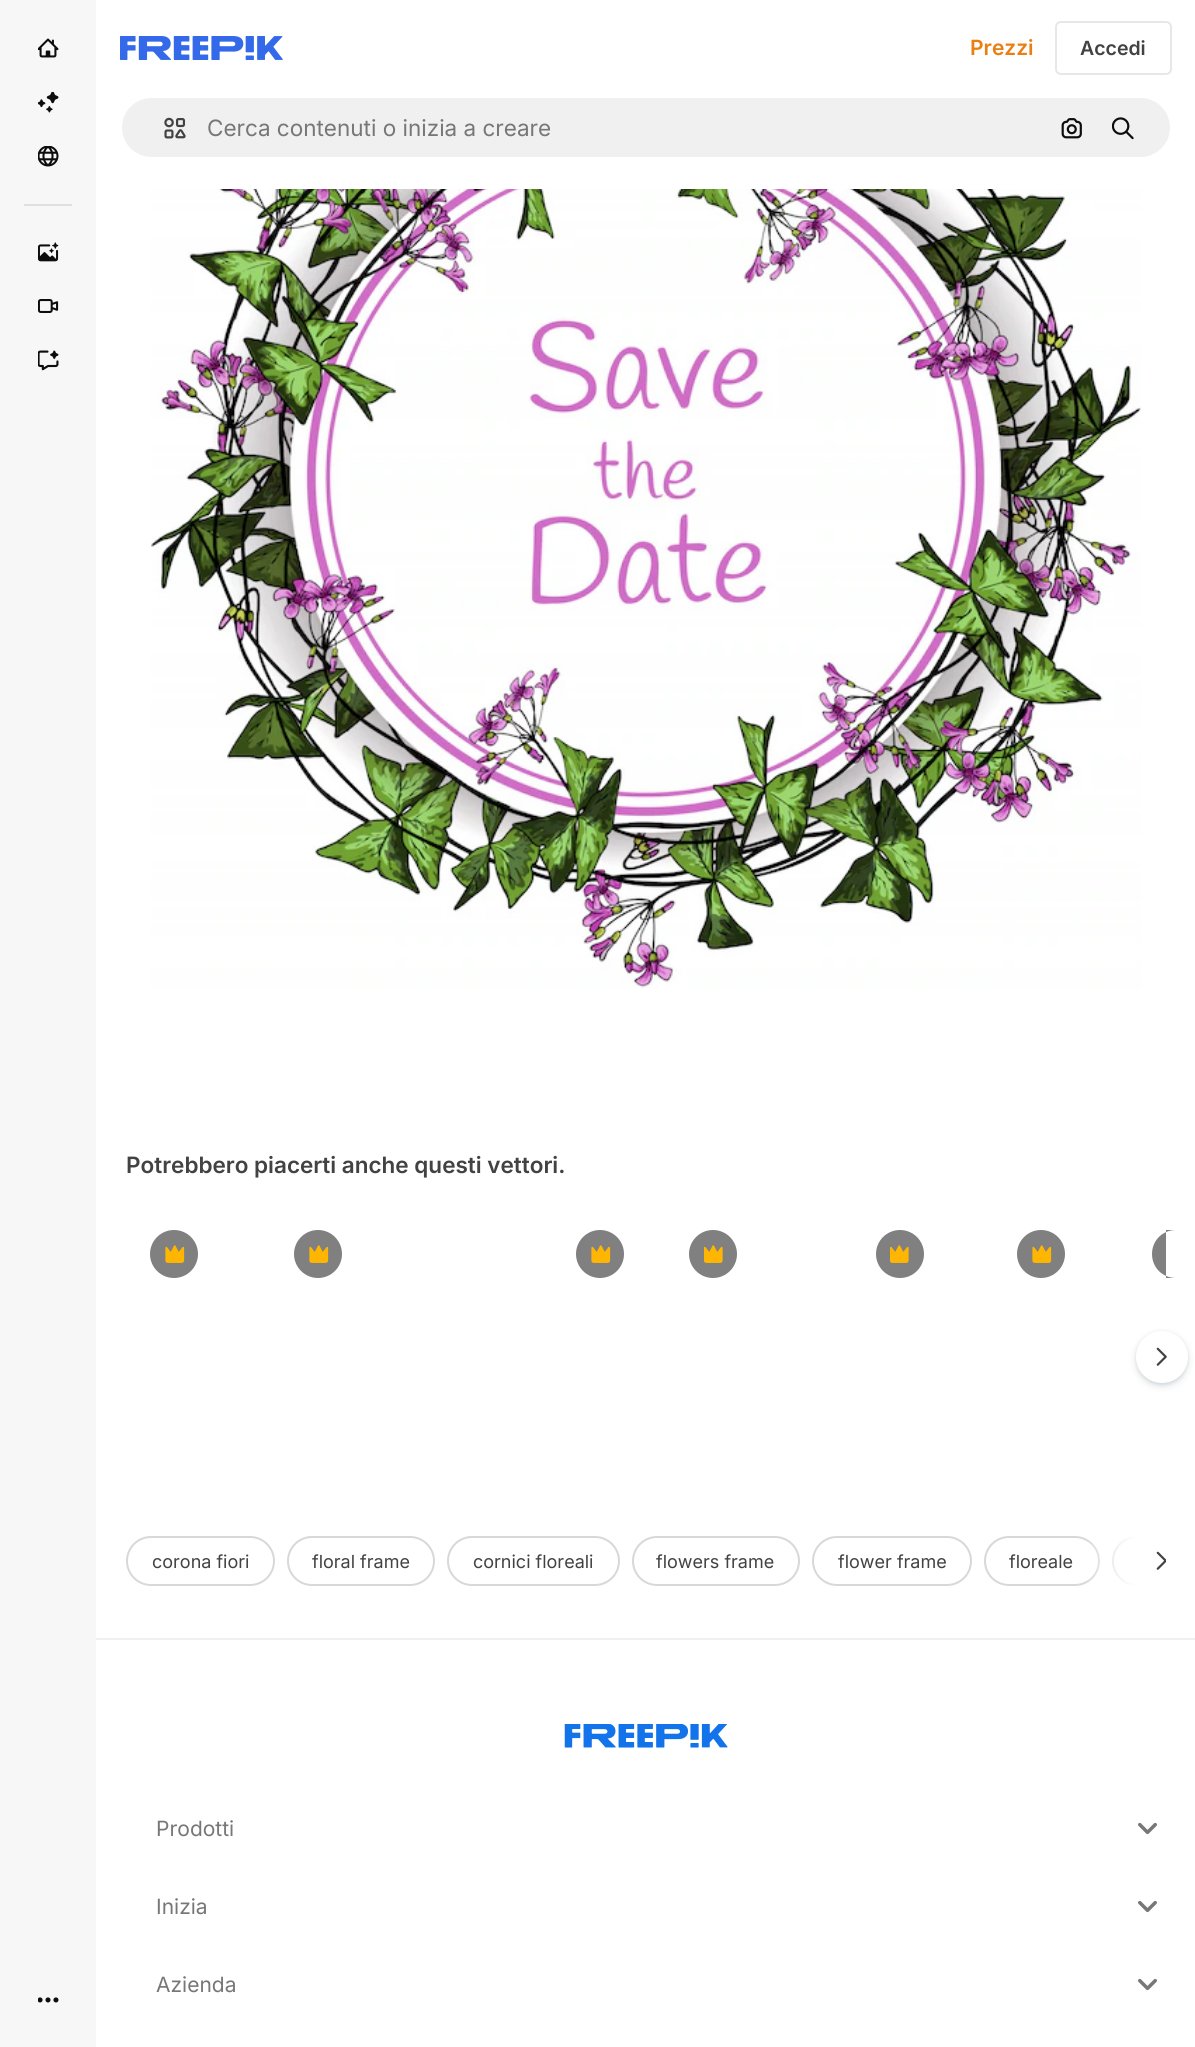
import math
import cairo

surface = cairo.ImageSurface(cairo.Format.RGB24, 1195, 2047)
ctx = cairo.Context(surface)
options = cairo.FontOptions()
options.set_hint_metrics(cairo.HintMetrics.OFF)
options.set_hint_style(cairo.HintStyle.NONE)
ctx.set_font_options(options)
ctx.set_miter_limit(4)


def ink(r, g, b):
    ctx.set_source_rgb(r / 255, g / 255, b / 255)


def write(x, y, s, family, size, color, bold=False, italic=False):
    ctx.select_font_face(family, cairo.FontSlant.ITALIC if italic else cairo.FontSlant.NORMAL, cairo.FontWeight.BOLD if bold else cairo.FontWeight.NORMAL)
    ctx.set_font_size(size)
    ink(*color)
    ctx.move_to(x, y)
    ctx.show_text(s)


def block(x, y, w, h, *color):
    ink(*color)
    ctx.rectangle(x, y, w, h)
    ctx.fill()


def round_path(x, y, w, h, r):
    ctx.new_sub_path()
    for i, (u, v) in enumerate([(x + w - r, y + h - r), (x + r, y + h - r), (x + r, y + r), (x + w - r, y + r)]):
        ctx.arc(u, v, r, i * math.pi / 2, (i + 1) * math.pi / 2)
    ctx.close_path()


def blur_box(x, y, w, h, r, blur, alpha):
    ctx.push_group_with_content(cairo.Content.ALPHA)
    ctx.set_operator(cairo.Operator.SOURCE)
    for i in range(15, -16, -2):
        e = blur * i / 6
        if min(w, h) + 2 * e > 0:
            ctx.set_source_rgba(0, 0, 0, alpha * math.erfc((i - 1) / 8.5) / 2)
            round_path(x - e, y - e, w + 2 * e, h + 2 * e, max(0, min(r + e + blur * .6, min(w, h) / 2 + e)))
            ctx.fill()
    ctx.mask(ctx.pop_group())


def paste(path, x, y, w, h):
    ctx.save()
    ctx.set_source_surface(cairo.ImageSurface.create_from_png(path), x, y)
    ctx.rectangle(x, y, w, h)
    ctx.fill()
    ctx.restore()


s1 = dict(family="Inter SemiBold", size=21, color=(234, 126, 17))
s2 = dict(family="Inter SemiBold", size=19.5, color=(66, 66, 66))
s3 = dict(family="Inter", size=22.5, color=(119, 119, 119))
s4 = dict(family="Inter SemiBold", size=22.5, color=(66, 66, 66))
s5 = dict(family="Inter", size=18, color=(66, 66, 66))
s6 = dict(family="Inter", size=21, color=(119, 119, 119))

ink(255, 255, 255)
ctx.paint()
block(0, 0, 96, 2047, 247, 247, 247)
paste("pic1.png", 38, 38, 21, 20)
paste("pic2.png", 38, 92, 21, 21)
paste("pic3.png", 38, 146, 21, 21)
block(24, 204, 48, 2, 224, 224, 224)
paste("pic4.png", 38, 242, 21, 20)
paste("pic5.png", 38, 299, 21, 14)
paste("pic6.png", 38, 350, 21, 21)
paste("pic7.png", 38, 1997, 21, 6)
paste("pic8.png", 120, 36, 163, 24)
write(970, 55, "Prezzi", **s1)
round_path(1056, 22, 115, 52, 5)
ink(231, 231, 231)
ctx.stroke()
write(1080, 55, "Accedi", **s2)
ink(240, 240, 240)
round_path(121, 97, 1050, 61, 30.5)
ctx.fill_preserve()
ink(255, 255, 255)
ctx.stroke()
paste("pic9.png", 164, 117, 22, 22)
write(207, 136, "Cerca contenuti o inizia a creare", **s3)
paste("pic10.png", 1061, 118, 21, 21)
paste("pic11.png", 1112, 117, 22, 23)
paste("pic12.png", 151, 189, 990, 800)
write(126, 1173, "Potrebbero piacerti anche questi vettori.", **s4)
ink(128, 128, 128)
ctx.new_path()
ctx.arc(174, 1254, 24, 0, 2 * math.pi)
ctx.fill()
paste("pic13.png", 165, 1245, 20, 18)
ctx.arc(318, 1254, 24, 0, 2 * math.pi)
ctx.fill()
paste("pic13.png", 309, 1245, 20, 18)
ctx.arc(600, 1254, 24, 0, 2 * math.pi)
ctx.fill()
paste("pic13.png", 591, 1245, 20, 18)
ctx.arc(713, 1254, 24, 0, 2 * math.pi)
ctx.fill()
paste("pic14.png", 704, 1245, 19, 18)
ctx.arc(900, 1254, 24, 0, 2 * math.pi)
ctx.fill()
paste("pic14.png", 890, 1245, 19, 18)
ctx.arc(1041, 1254, 24, 0, 2 * math.pi)
ctx.fill()
paste("pic13.png", 1032, 1245, 20, 18)
ctx.new_path()
ctx.move_to(1176, 1230)
ctx.line_to(1166, 1230)
ctx.line_to(1166, 1278)
ctx.line_to(1176, 1278)
ctx.curve_to(1162.5, 1278, 1152, 1267.5, 1152, 1254)
ctx.curve_to(1152, 1240.5, 1162.5, 1230, 1176, 1230)
ctx.close_path()
ctx.fill()
ink(55, 73, 87)
blur_box(1136, 1334, 52, 52, 26, 4, 0.15)
blur_box(1136, 1332, 52, 53, 26, 1.5, 0.1)
ink(255, 255, 255)
ctx.arc(1162, 1357, 26, 0, 2 * math.pi)
ctx.fill()
paste("pic15.png", 1156, 1347, 11, 19)
round_path(127, 1537, 147, 48, 24)
ink(216, 216, 216)
ctx.stroke()
write(152, 1568, "corona fiori", **s5)
round_path(288, 1537, 146, 48, 24)
ink(216, 216, 216)
ctx.stroke()
write(312, 1568, "floral frame", **s5)
round_path(448, 1537, 171, 48, 24)
ink(216, 216, 216)
ctx.stroke()
write(473, 1568, "cornici floreali", **s5)
round_path(633, 1537, 166, 48, 24)
ink(216, 216, 216)
ctx.stroke()
write(656, 1568, "flowers frame", **s5)
round_path(813, 1537, 158, 48, 24)
ink(216, 216, 216)
ctx.stroke()
write(838, 1568, "flower frame", **s5)
round_path(985, 1537, 114, 48, 24)
ink(216, 216, 216)
ctx.stroke()
write(1009, 1568, "floreale", **s5)
ctx.save()
ctx.rectangle(126, 1536, 1040, 50)
ctx.clip()
round_path(1113, 1537, 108, 48, 24)
ink(216, 216, 216)
ctx.stroke()
ctx.restore()
block(1136, 1536, 30, 50, 255, 255, 255)
gradient = cairo.LinearGradient(1136, 1561, 1083, 1561)
gradient.add_color_stop_rgba(0, 1, 1, 1, 1)
gradient.add_color_stop_rgba(1, 1, 1, 1, 0)
ctx.set_source(gradient)
ctx.rectangle(1087, 1536, 49, 50)
ctx.fill()
paste("pic16.png", 1156, 1551, 10, 19)
block(96, 1638, 1099, 2, 240, 240, 240)
paste("pic17.png", 564, 1724, 164, 24)
write(156, 1836, "Prodotti", **s6)
paste("pic18.png", 1138, 1822, 19, 13)
write(156, 1914, "Inizia", **s6)
paste("pic18.png", 1138, 1900, 19, 13)
write(156, 1992, "Azienda", **s6)
paste("pic18.png", 1138, 1978, 19, 13)
surface.write_to_png("screenshot.png")
